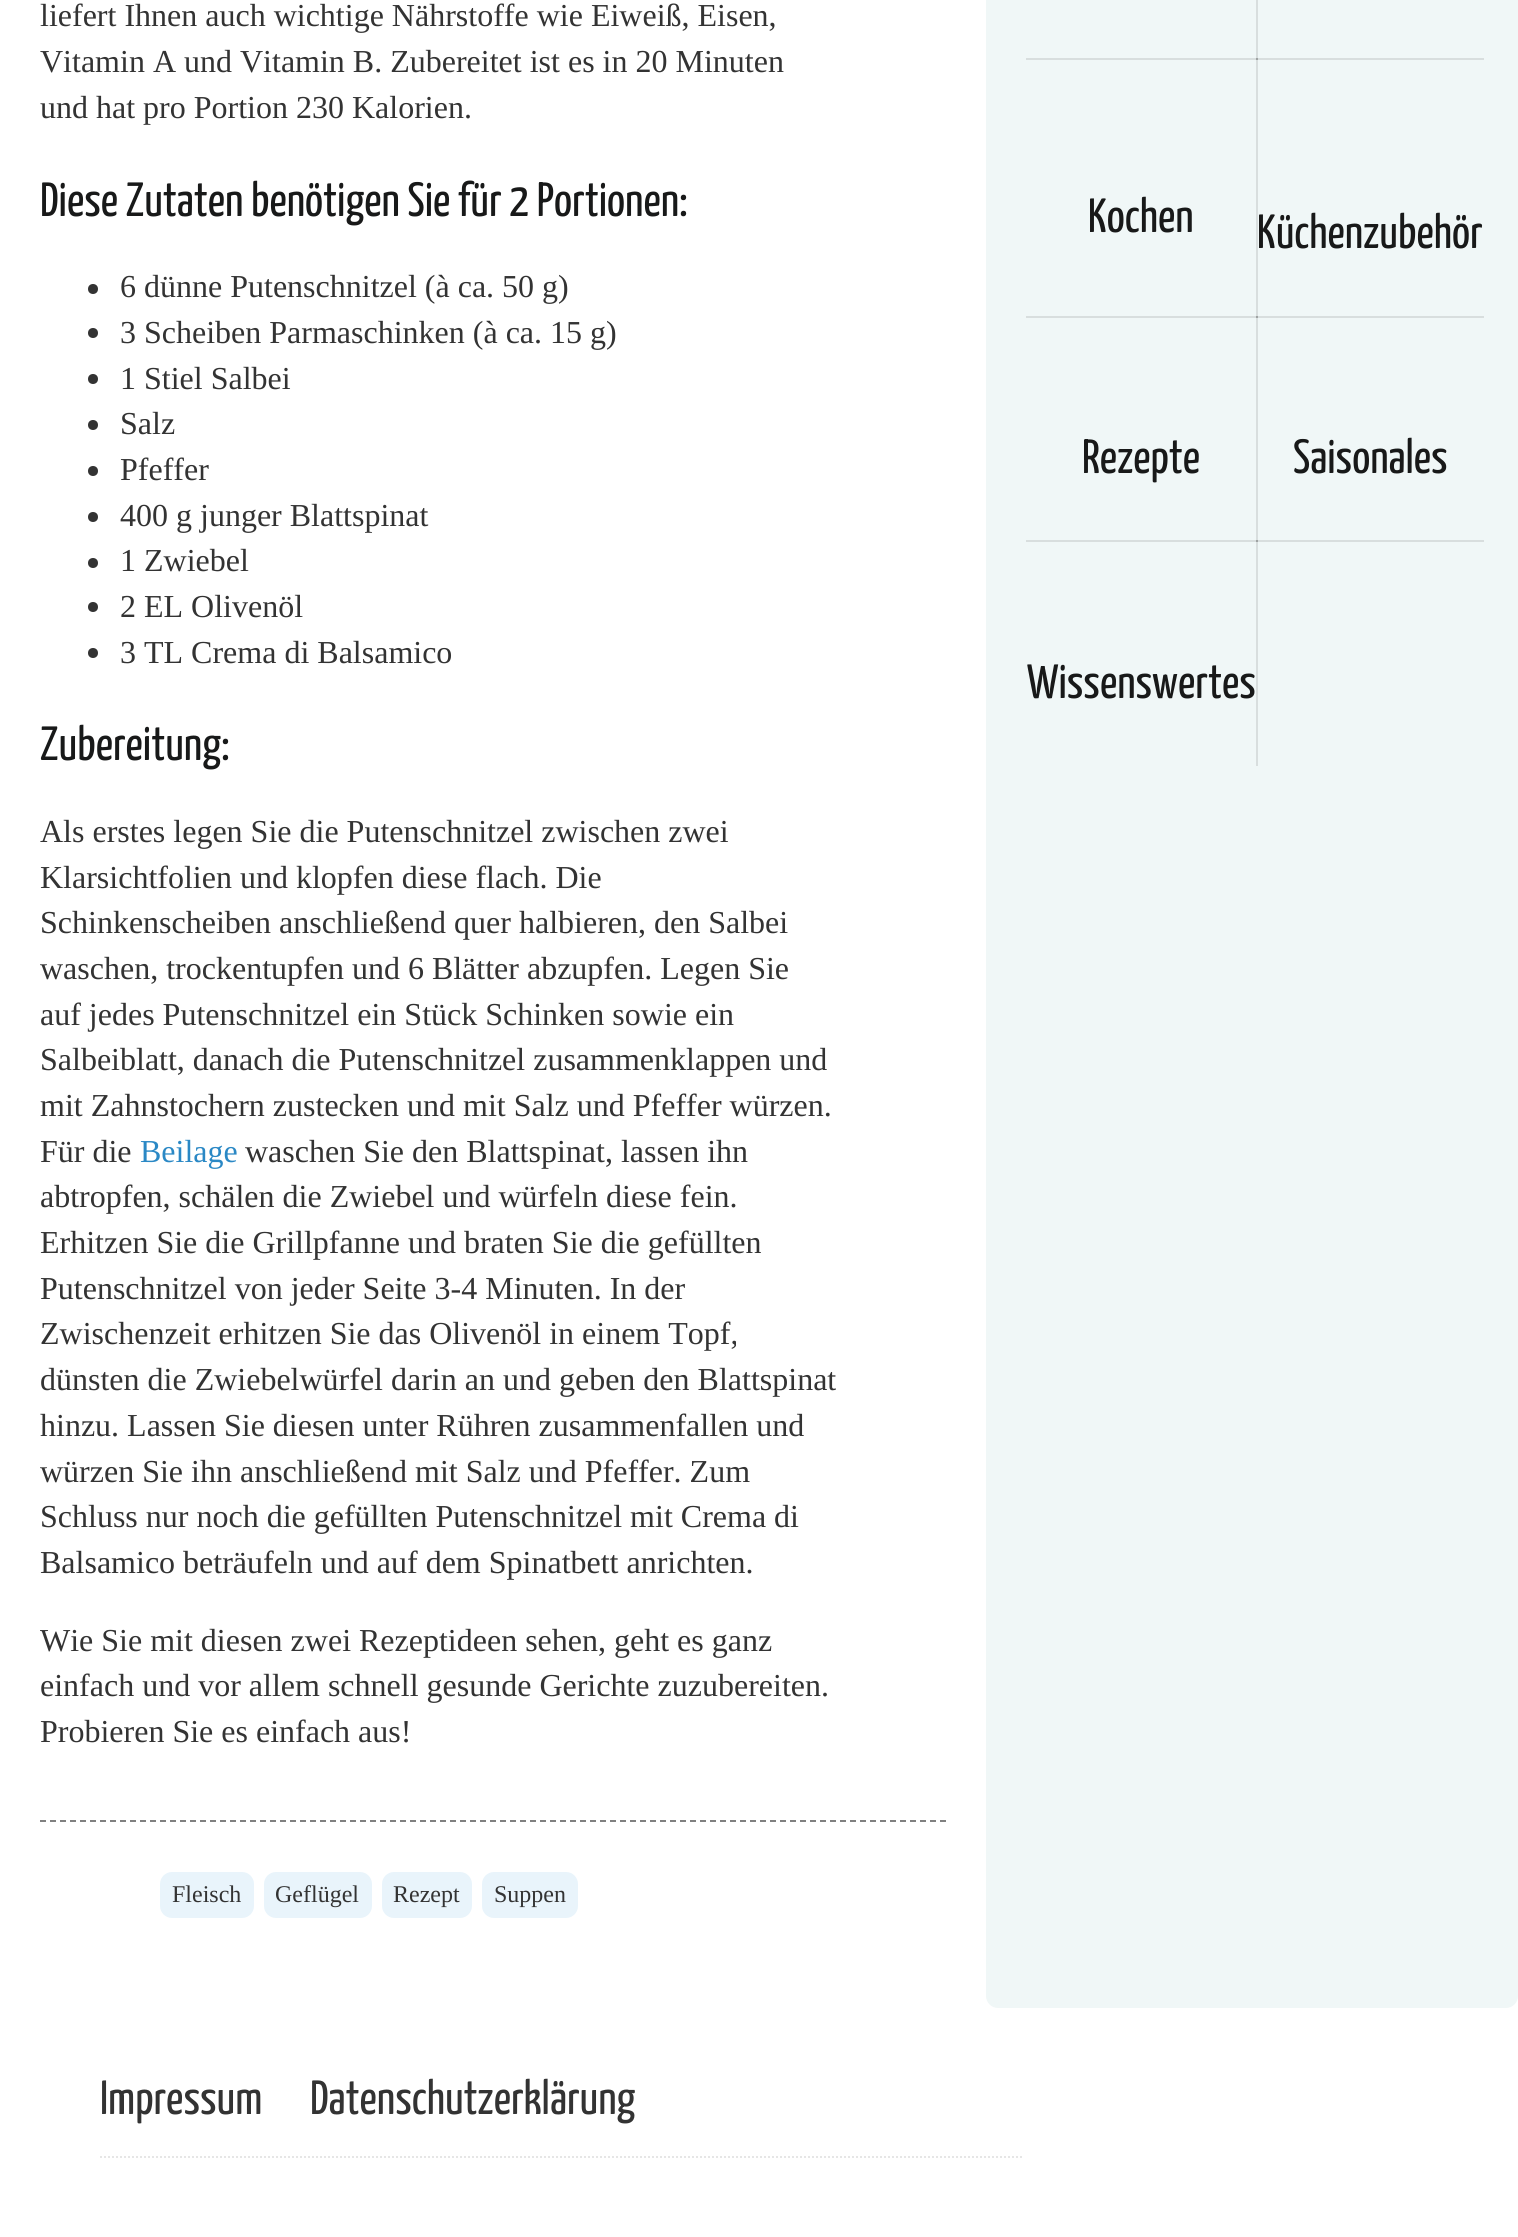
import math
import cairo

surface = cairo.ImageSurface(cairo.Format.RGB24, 1518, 2237)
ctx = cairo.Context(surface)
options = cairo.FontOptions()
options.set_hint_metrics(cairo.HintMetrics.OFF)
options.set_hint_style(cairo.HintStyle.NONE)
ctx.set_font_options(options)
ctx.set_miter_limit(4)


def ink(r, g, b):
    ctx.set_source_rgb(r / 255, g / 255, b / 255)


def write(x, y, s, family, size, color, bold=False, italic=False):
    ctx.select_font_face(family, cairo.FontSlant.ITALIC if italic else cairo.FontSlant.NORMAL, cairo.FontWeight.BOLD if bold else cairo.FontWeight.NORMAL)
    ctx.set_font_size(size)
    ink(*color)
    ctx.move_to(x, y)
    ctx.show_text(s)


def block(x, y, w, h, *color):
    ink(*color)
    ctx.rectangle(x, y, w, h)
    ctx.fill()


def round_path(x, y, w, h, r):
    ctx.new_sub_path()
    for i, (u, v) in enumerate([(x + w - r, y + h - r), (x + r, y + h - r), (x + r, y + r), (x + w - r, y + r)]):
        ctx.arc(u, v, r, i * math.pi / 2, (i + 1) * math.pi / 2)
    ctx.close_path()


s1 = dict(family="Liberation Serif", size=32, color=(51, 51, 51))
s2 = dict(family="Yanone Kaffeesatz ExtraLight", size=48, color=(24, 25, 25))
s3 = dict(family="Liberation Serif", size=32, color=(42, 136, 197))
s4 = dict(family="Liberation Serif", size=24, color=(51, 51, 51))
s5 = dict(family="Yanone Kaffeesatz ExtraLight", size=48, color=(51, 51, 51))

ink(255, 255, 255)
ctx.paint()
write(40, 26, "liefert Ihnen auch wichtige Nährstoffe wie Eiweiß, Eisen,", **s1)
write(40, 72, "Vitamin A und Vitamin B. Zubereitet ist es in 20 Minuten", **s1)
write(40, 118, "und hat pro Portion 230 Kalorien.", **s1)
write(40, 216, "Diese Zutaten benötigen Sie für 2 Portionen:", **s2)
ink(51, 51, 51)
ctx.new_path()
ctx.arc(93, 289, 5, 0, 2 * math.pi)
ctx.fill()
write(120, 297, "6 dünne Putenschnitzel (à ca. 50 g)", **s1)
ctx.new_path()
ctx.arc(93, 333, 5, 0, 2 * math.pi)
ctx.fill()
write(120, 343, "3 Scheiben Parmaschinken (à ca. 15 g)", **s1)
ctx.new_path()
ctx.arc(93, 379, 5, 0, 2 * math.pi)
ctx.fill()
write(120, 389, "1 Stiel Salbei", **s1)
ctx.new_path()
ctx.arc(93, 425, 5, 0, 2 * math.pi)
ctx.fill()
write(120, 434, "Salz", **s1)
ctx.new_path()
ctx.arc(93, 471, 5, 0, 2 * math.pi)
ctx.fill()
write(120, 480, "Pfeffer", **s1)
ctx.new_path()
ctx.arc(93, 517, 5, 0, 2 * math.pi)
ctx.fill()
write(120, 526, "400 g junger Blattspinat", **s1)
ctx.new_path()
ctx.arc(93, 563, 5, 0, 2 * math.pi)
ctx.fill()
write(120, 571, "1 Zwiebel", **s1)
ctx.new_path()
ctx.arc(93, 607, 5, 0, 2 * math.pi)
ctx.fill()
write(120, 617, "2 EL Olivenöl", **s1)
ctx.new_path()
ctx.arc(93, 653, 5, 0, 2 * math.pi)
ctx.fill()
write(120, 663, "3 TL Crema di Balsamico", **s1)
write(40, 760, "Zubereitung:", **s2)
write(40, 842, "Als erstes legen Sie die Putenschnitzel zwischen zwei", **s1)
write(40, 888, "Klarsichtfolien und klopfen diese flach. Die", **s1)
write(40, 933, "Schinkenscheiben anschließend quer halbieren, den Salbei", **s1)
write(40, 979, "waschen, trockentupfen und 6 Blätter abzupfen. Legen Sie", **s1)
write(40, 1025, "auf jedes Putenschnitzel ein Stück Schinken sowie ein", **s1)
write(40, 1070, "Salbeiblatt, danach die Putenschnitzel zusammenklappen und", **s1)
write(40, 1116, "mit Zahnstochern zustecken und mit Salz und Pfeffer würzen.", **s1)
write(40, 1162, "Für die", **s1)
write(140, 1162, "Beilage", **s3)
write(245, 1162, "waschen Sie den Blattspinat, lassen ihn", **s1)
write(40, 1207, "abtropfen, schälen die Zwiebel und würfeln diese fein.", **s1)
write(40, 1253, "Erhitzen Sie die Grillpfanne und braten Sie die gefüllten", **s1)
write(40, 1299, "Putenschnitzel von jeder Seite 3-4 Minuten. In der", **s1)
write(40, 1344, "Zwischenzeit erhitzen Sie das Olivenöl in einem Topf,", **s1)
write(40, 1390, "dünsten die Zwiebelwürfel darin an und geben den Blattspinat", **s1)
write(40, 1436, "hinzu. Lassen Sie diesen unter Rühren zusammenfallen und", **s1)
write(40, 1482, "würzen Sie ihn anschließend mit Salz und Pfeffer. Zum", **s1)
write(40, 1527, "Schluss nur noch die gefüllten Putenschnitzel mit Crema di", **s1)
write(40, 1573, "Balsamico beträufeln und auf dem Spinatbett anrichten.", **s1)
write(40, 1651, "Wie Sie mit diesen zwei Rezeptideen sehen, geht es ganz", **s1)
write(40, 1696, "einfach und vor allem schnell gesunde Gerichte zuzubereiten.", **s1)
write(40, 1742, "Probieren Sie es einfach aus!", **s1)
ctx.new_path()
ctx.move_to(40, 1821)
ctx.line_to(946, 1821)
ink(128, 128, 128)
ctx.set_dash([6, 4])
ctx.stroke()
ink(233, 244, 251)
round_path(160, 1872, 94, 46, 12)
ctx.fill()
write(172, 1902, "Fleisch", **s4)
ink(233, 244, 251)
round_path(264, 1872, 108, 46, 12)
ctx.fill()
write(275, 1902, "Geflügel", **s4)
ink(233, 244, 251)
round_path(382, 1872, 90, 46, 12)
ctx.fill()
write(393, 1902, "Rezept", **s4)
ink(233, 244, 251)
round_path(482, 1872, 96, 46, 12)
ctx.fill()
write(494, 1902, "Suppen", **s4)
ink(240, 247, 247)
round_path(986, -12, 532, 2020, 12)
ctx.fill()
block(1026, 58, 232, 2, 216, 222, 222)
block(1256, 0, 2, 60, 216, 222, 222)
block(1256, 58, 228, 2, 216, 222, 222)
block(1026, 316, 232, 2, 216, 222, 222)
block(1256, 58, 2, 260, 216, 222, 222)
block(1256, 58, 2, 2, 158, 162, 162)
block(1256, 316, 228, 2, 216, 222, 222)
block(1026, 540, 232, 2, 216, 222, 222)
block(1256, 316, 2, 226, 216, 222, 222)
block(1256, 316, 2, 2, 158, 162, 162)
block(1256, 540, 228, 2, 216, 222, 222)
write(1088, 232, "Kochen", **s2)
write(1257, 248, "Küchenzubehör", **s2)
write(1082, 473, "Rezepte", **s2)
write(1293, 473, "Saisonales", **s2)
block(1256, 540, 2, 226, 216, 222, 222)
block(1256, 540, 2, 2, 158, 162, 162)
write(1027, 698, "Wissenswertes", **s2)
write(100, 2114, "Impressum", **s5)
write(310, 2114, "Datenschutzerklärung", **s5)
ctx.new_path()
ctx.move_to(100, 2157)
ctx.line_to(1022, 2157)
ink(230, 230, 230)
ctx.set_dash([2, 2])
ctx.stroke()
surface.write_to_png("screenshot.png")
